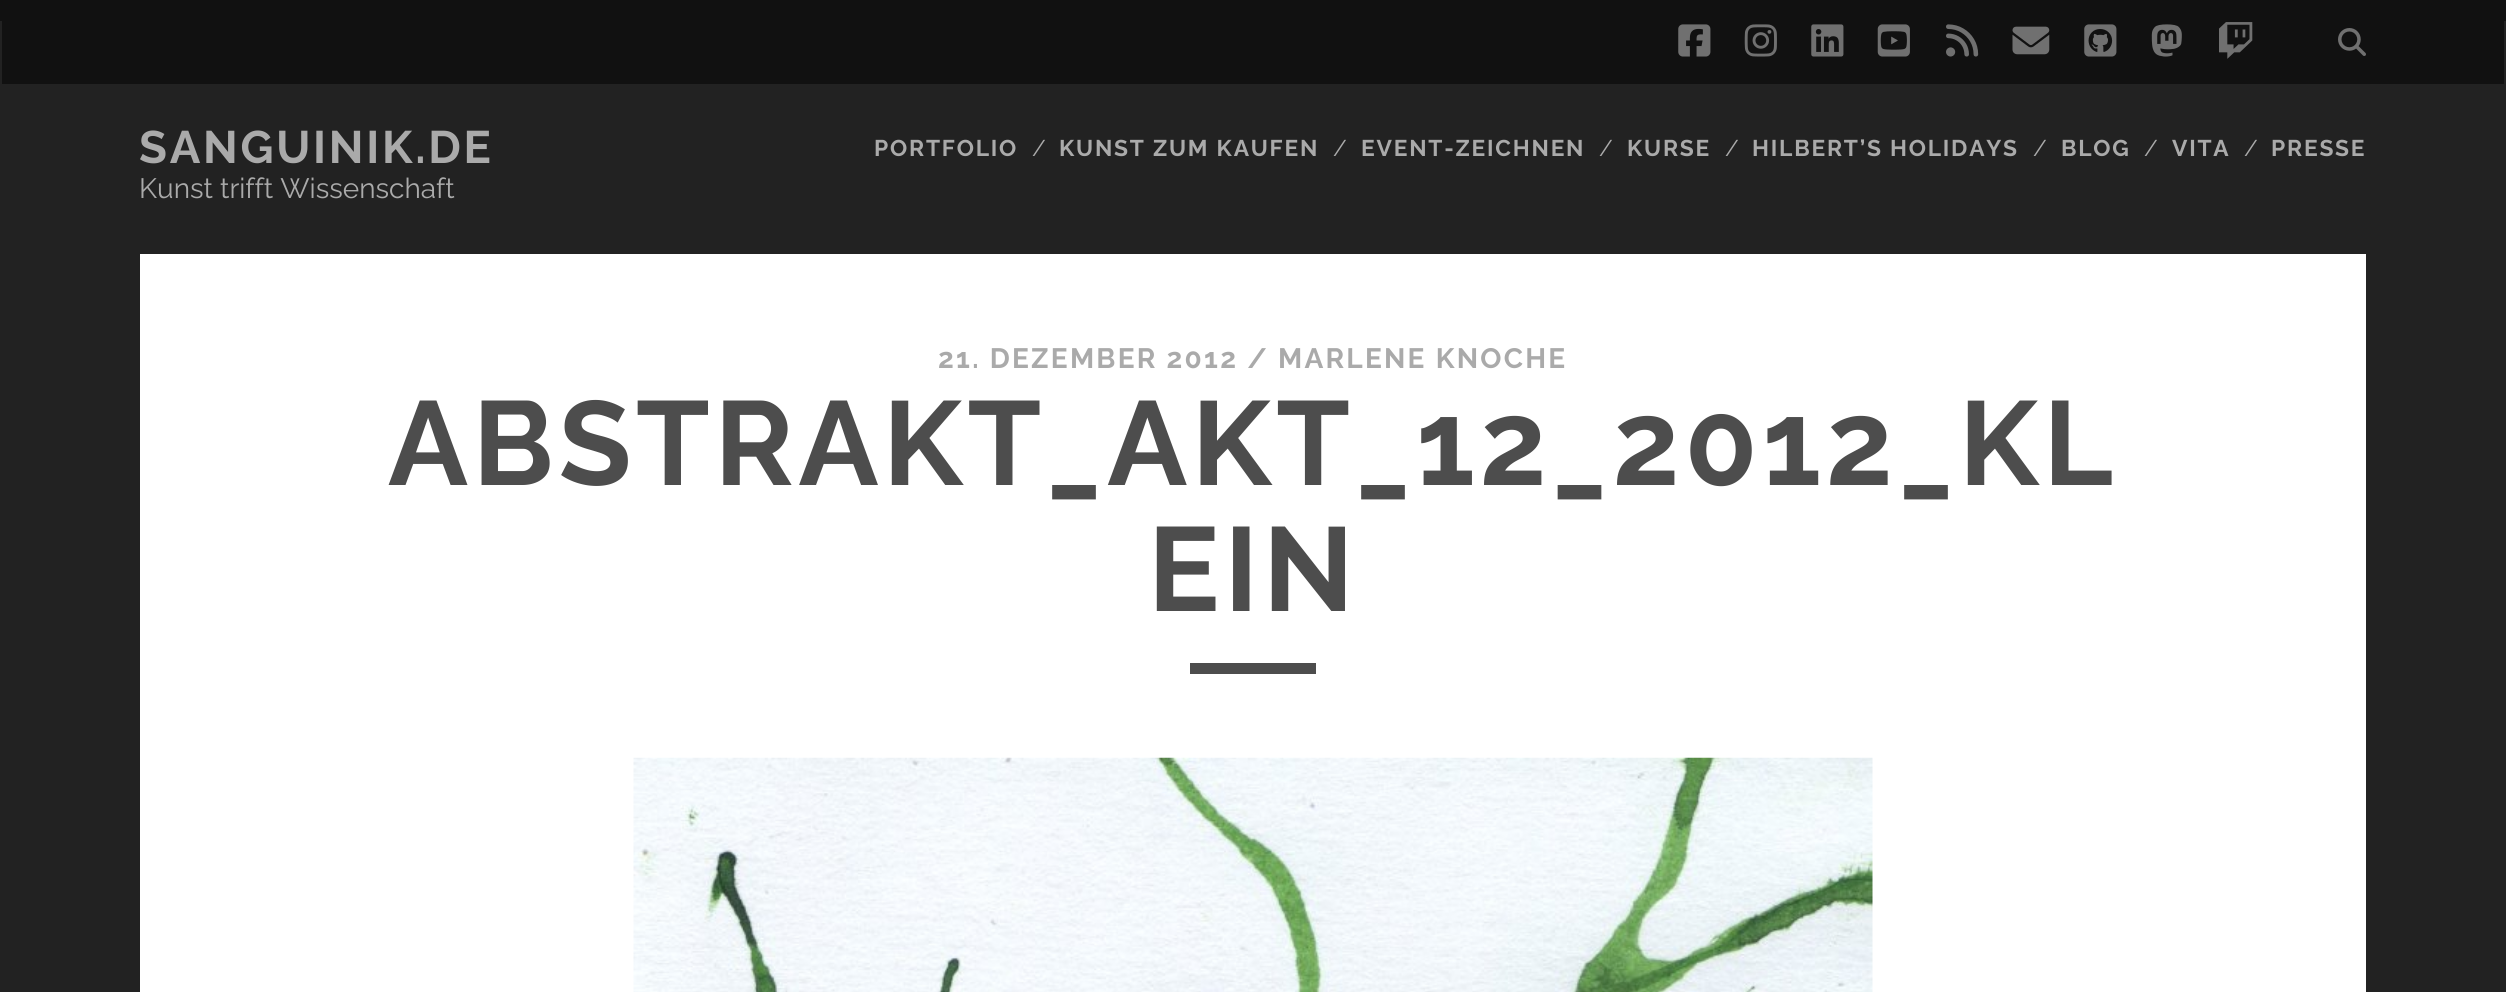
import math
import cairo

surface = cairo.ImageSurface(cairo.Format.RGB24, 2506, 992)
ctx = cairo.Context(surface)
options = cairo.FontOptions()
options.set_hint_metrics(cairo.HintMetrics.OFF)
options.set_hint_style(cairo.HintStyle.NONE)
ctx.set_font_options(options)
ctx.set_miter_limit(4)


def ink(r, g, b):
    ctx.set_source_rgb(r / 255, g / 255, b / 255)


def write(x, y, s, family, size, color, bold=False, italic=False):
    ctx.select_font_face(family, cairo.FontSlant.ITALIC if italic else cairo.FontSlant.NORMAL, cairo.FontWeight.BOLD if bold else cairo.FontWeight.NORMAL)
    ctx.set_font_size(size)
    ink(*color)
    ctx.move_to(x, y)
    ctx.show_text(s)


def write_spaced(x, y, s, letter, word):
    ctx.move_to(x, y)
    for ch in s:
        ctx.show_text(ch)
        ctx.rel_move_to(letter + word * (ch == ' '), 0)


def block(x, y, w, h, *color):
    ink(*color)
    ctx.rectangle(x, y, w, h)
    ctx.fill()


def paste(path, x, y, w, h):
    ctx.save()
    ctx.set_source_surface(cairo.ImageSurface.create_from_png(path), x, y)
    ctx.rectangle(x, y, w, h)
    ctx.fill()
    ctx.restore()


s1 = dict(family="Raleway", size=22.75, color=(170, 170, 170))
s2 = dict(family="Raleway", size=28, color=(170, 170, 170))

ink(34, 34, 34)
ctx.paint()
block(0, 0, 2506, 21, 17, 17, 17)
block(2, 21, 2502, 63, 17, 17, 17)
paste("pic1.png", 1678, 24, 33, 33)
paste("pic2.png", 1744, 24, 33, 33)
paste("pic3.png", 1811, 24, 33, 33)
paste("pic4.png", 1877, 24, 33, 33)
paste("pic5.png", 1946, 24, 33, 33)
paste("pic6.png", 2012, 26, 38, 29)
paste("pic7.png", 2084, 24, 33, 33)
paste("pic8.png", 2151, 24, 31, 33)
paste("pic9.png", 2219, 22, 34, 37)
paste("pic10.png", 2338, 28, 28, 28)
ctx.select_font_face("Raleway", cairo.FontSlant.NORMAL, cairo.FontWeight.BOLD)
ctx.set_font_size(45.5)
ink(170, 170, 170)
write_spaced(139, 163, "SANGUINIK.DE", 2.75, 0)
ctx.set_font_size(22.75)
write_spaced(874, 156, "PORTFOLIO", 1.8, 0)
write(1032, 156, "/", **s1)
ctx.select_font_face("Raleway", cairo.FontSlant.NORMAL, cairo.FontWeight.BOLD)
write_spaced(1059, 156, "KUNST ZUM KAUFEN", 1.8, 0)
write(1333, 156, "/", **s1)
ctx.select_font_face("Raleway", cairo.FontSlant.NORMAL, cairo.FontWeight.BOLD)
write_spaced(1361, 156, "EVENT-ZEICHNEN", 1.8, 0)
write(1599, 156, "/", **s1)
ctx.select_font_face("Raleway", cairo.FontSlant.NORMAL, cairo.FontWeight.BOLD)
write_spaced(1627, 156, "KURSE", 1.8, 0)
write(1725, 156, "/", **s1)
ctx.select_font_face("Raleway", cairo.FontSlant.NORMAL, cairo.FontWeight.BOLD)
write_spaced(1752, 156, "HILBERT’S HOLIDAYS", 1.8, 0)
write(2033, 156, "/", **s1)
ctx.select_font_face("Raleway", cairo.FontSlant.NORMAL, cairo.FontWeight.BOLD)
write_spaced(2061, 156, "BLOG", 1.8, 0)
write(2144, 156, "/", **s1)
ctx.select_font_face("Raleway", cairo.FontSlant.NORMAL, cairo.FontWeight.BOLD)
write_spaced(2172, 156, "VITA", 1.8, 0)
write(2244, 156, "/", **s1)
ctx.select_font_face("Raleway", cairo.FontSlant.NORMAL, cairo.FontWeight.BOLD)
write_spaced(2271, 156, "PRESSE", 1.8, 0)
write(139, 198, "Kunst trifft Wissenschaft", **s2)
block(140, 254, 2226, 738, 255, 255, 255)
ctx.select_font_face("Raleway", cairo.FontSlant.NORMAL, cairo.FontWeight.BOLD)
ink(170, 170, 170)
write_spaced(938, 368, "21. DEZEMBER 2012 / MARLENE KNOCHE", 2.25, 0)
ctx.set_font_size(119)
ink(77, 77, 77)
write_spaced(388, 485, "ABSTRAKT_AKT_12_2012_KL", 4.75, 0)
write_spaced(1148, 611, "EIN", 4.75, 0)
block(1190, 663, 126, 11, 77, 77, 77)
paste("pic11.png", 633, 757, 1240, 235)
surface.write_to_png("screenshot.png")
